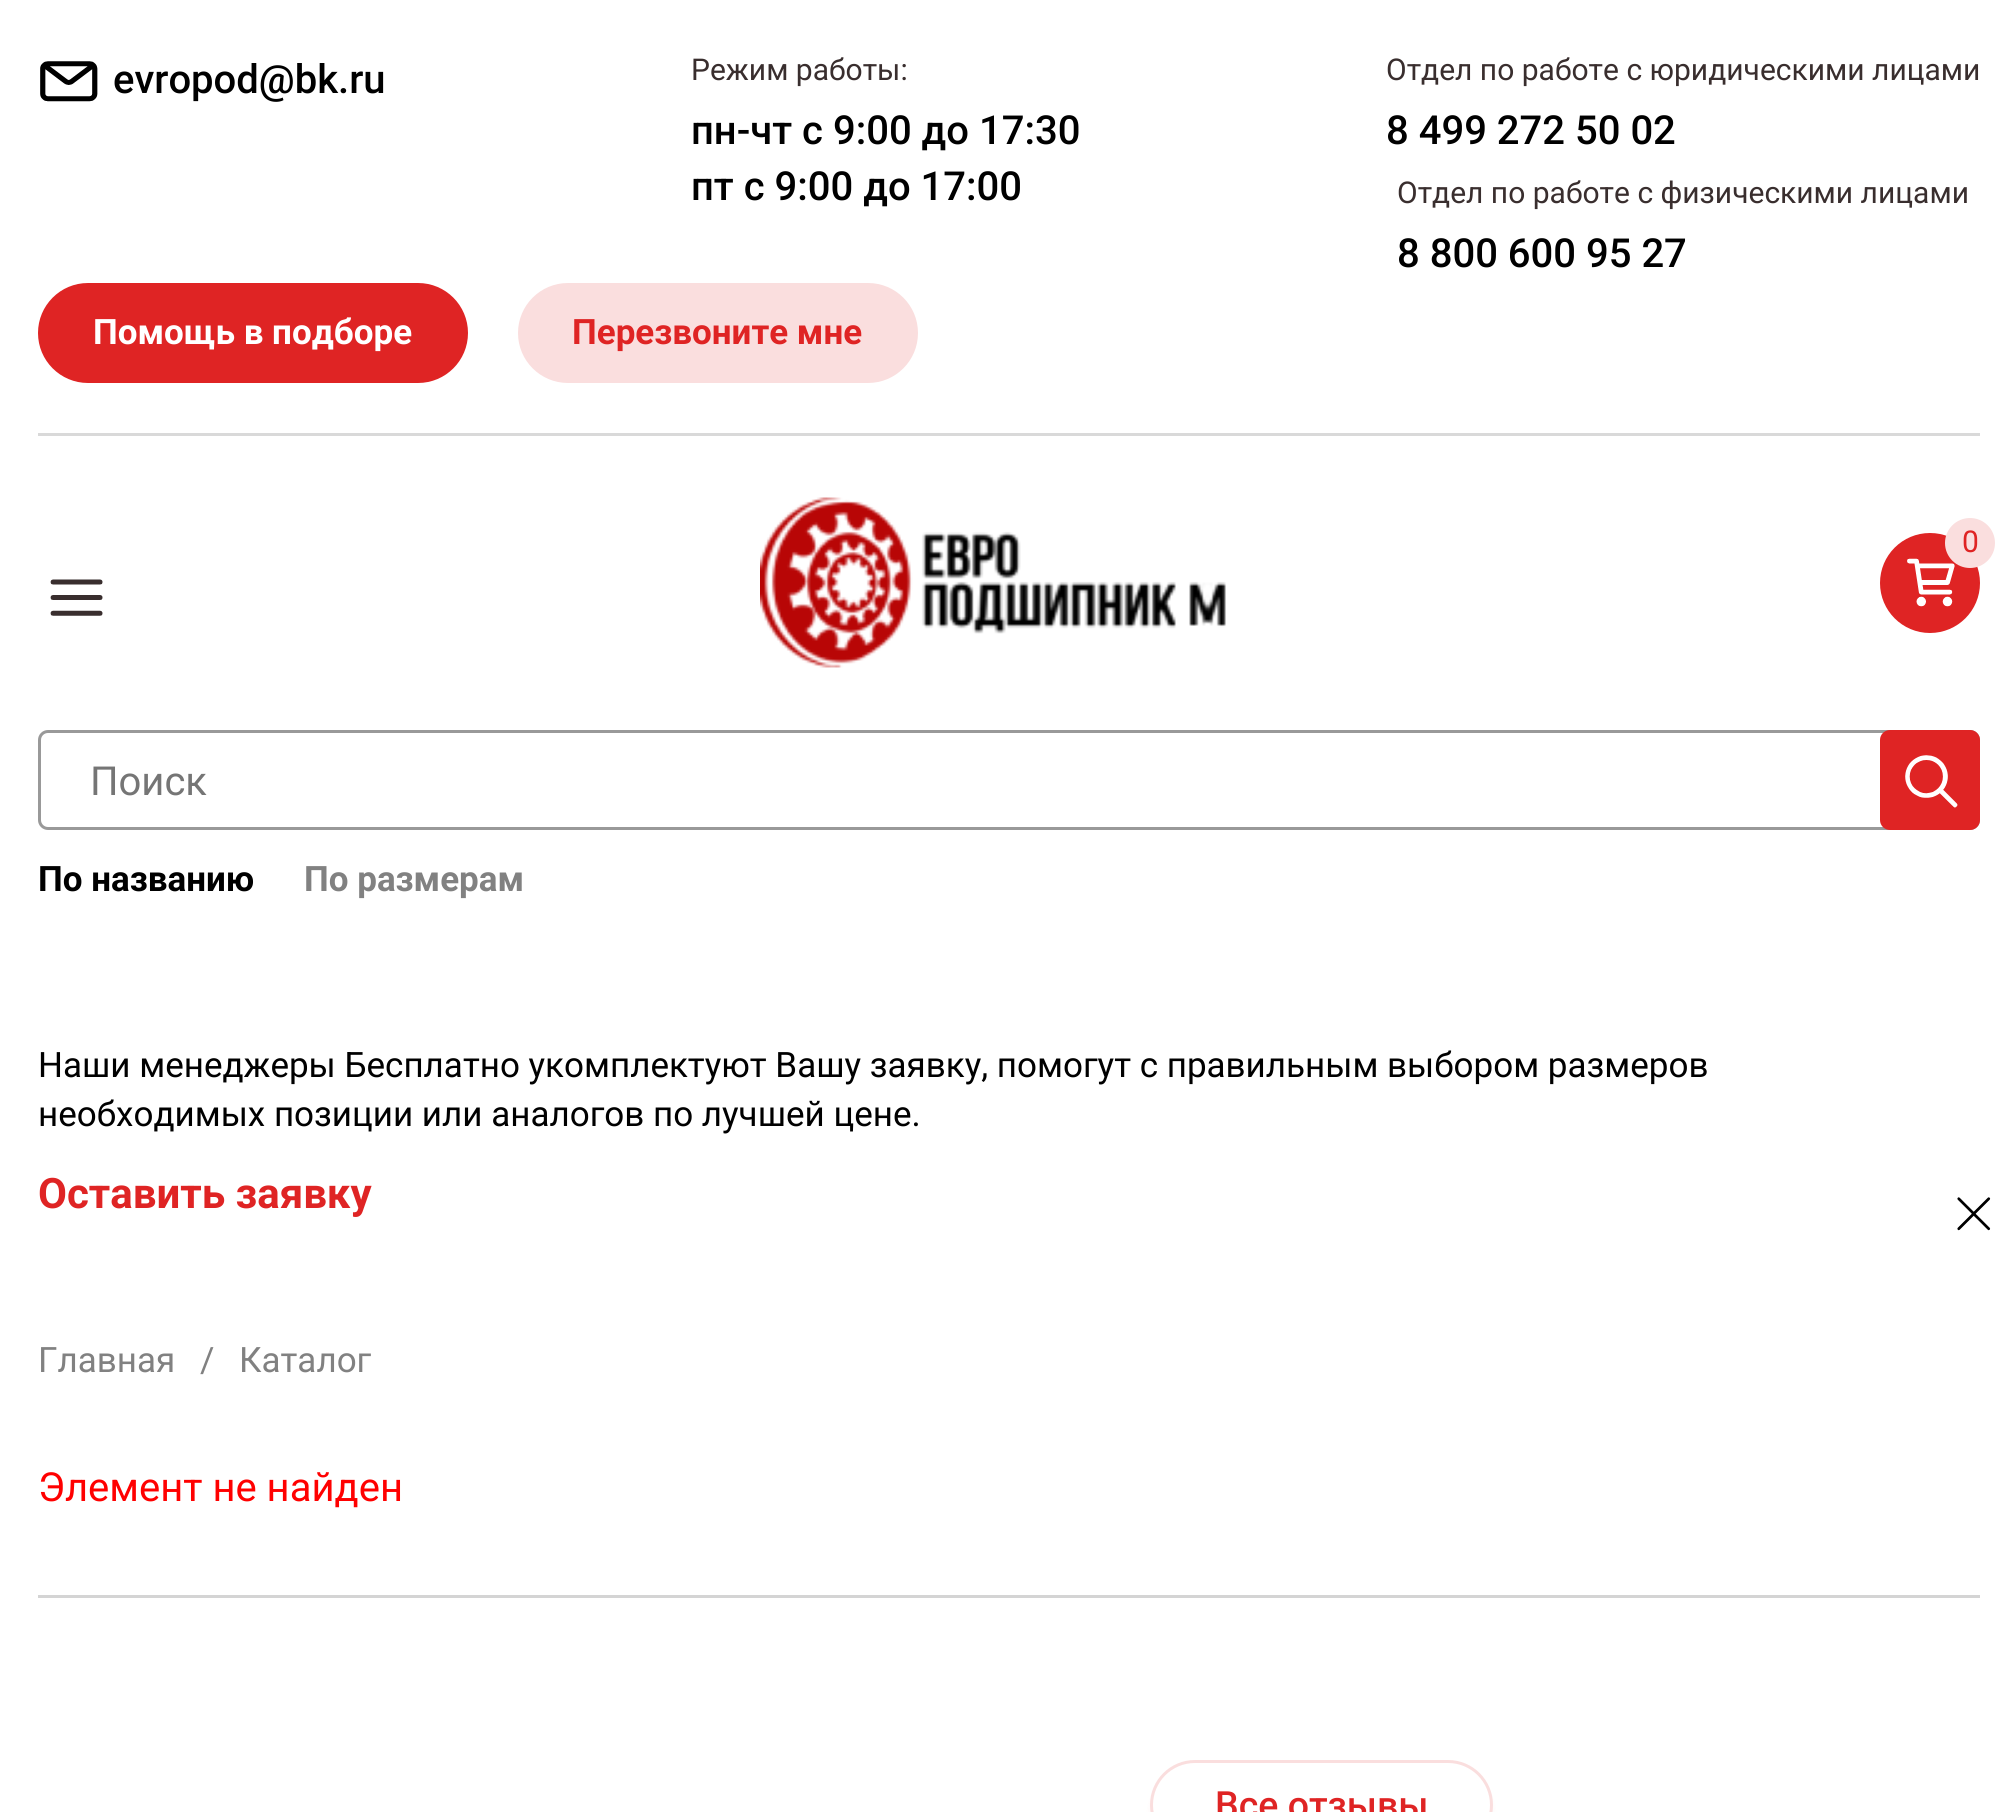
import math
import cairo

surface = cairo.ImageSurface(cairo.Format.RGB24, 2016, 1812)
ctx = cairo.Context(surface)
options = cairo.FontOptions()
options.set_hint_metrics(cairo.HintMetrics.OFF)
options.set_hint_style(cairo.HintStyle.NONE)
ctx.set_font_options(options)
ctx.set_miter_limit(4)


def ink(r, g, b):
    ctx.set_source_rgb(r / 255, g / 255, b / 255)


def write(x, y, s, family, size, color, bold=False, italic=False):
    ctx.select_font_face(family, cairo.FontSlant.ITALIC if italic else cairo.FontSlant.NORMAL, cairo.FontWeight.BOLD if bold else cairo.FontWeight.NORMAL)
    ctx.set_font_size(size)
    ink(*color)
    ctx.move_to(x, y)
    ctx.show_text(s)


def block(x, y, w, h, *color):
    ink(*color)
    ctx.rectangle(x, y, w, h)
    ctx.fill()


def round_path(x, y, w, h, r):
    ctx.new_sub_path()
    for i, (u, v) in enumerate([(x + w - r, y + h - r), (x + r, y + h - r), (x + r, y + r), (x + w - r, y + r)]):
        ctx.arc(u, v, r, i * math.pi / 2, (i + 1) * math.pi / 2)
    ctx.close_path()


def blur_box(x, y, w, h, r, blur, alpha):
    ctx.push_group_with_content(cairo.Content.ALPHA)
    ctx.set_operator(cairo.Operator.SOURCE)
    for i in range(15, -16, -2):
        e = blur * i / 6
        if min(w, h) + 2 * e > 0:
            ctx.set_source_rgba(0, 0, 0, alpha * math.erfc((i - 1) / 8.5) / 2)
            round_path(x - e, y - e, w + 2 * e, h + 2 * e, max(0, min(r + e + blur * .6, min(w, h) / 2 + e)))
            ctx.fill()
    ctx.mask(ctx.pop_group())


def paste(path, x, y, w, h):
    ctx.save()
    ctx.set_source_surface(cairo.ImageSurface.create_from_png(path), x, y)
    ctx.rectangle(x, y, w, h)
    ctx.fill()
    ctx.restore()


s1 = dict(family="Roboto Medium", size=40, color=(0, 0, 0))
s2 = dict(family="Roboto", size=30, color=(57, 46, 46))
s3 = dict(family="Roboto", size=35, color=(255, 255, 255), bold=True)
s4 = dict(family="Roboto", size=35, color=(223, 36, 36), bold=True)
s5 = dict(family="Roboto", size=30, color=(223, 36, 36))
s6 = dict(family="Roboto", size=40, color=(117, 117, 117))
s7 = dict(family="Roboto", size=35, color=(0, 0, 0), bold=True)
s8 = dict(family="Roboto", size=35, color=(129, 129, 129), bold=True)
s9 = dict(family="Roboto", size=35, color=(0, 0, 0))
s10 = dict(family="Roboto", size=42, color=(223, 36, 36), bold=True)
s11 = dict(family="Roboto", size=35, color=(129, 129, 129))
s12 = dict(family="Roboto", size=40, color=(255, 0, 0))
s13 = dict(family="Roboto Medium", size=37.5, color=(223, 36, 36))

ink(255, 255, 255)
ctx.paint()
block(38, 433, 1942, 3, 217, 217, 217)
paste("pic1.png", 40, 61, 58, 41)
write(113, 93, "evropod@bk.ru", **s1)
write(691, 80, "Режим работы:", **s2)
write(691, 144, "пн-чт с 9:00 до 17:30", **s1)
write(691, 200, "пт с 9:00 до 17:00", **s1)
write(1386, 80, "Отдел по работе с юридическими лицами", **s2)
write(1386, 144, "8 499 272 50 02", **s1)
write(1397, 203, "Отдел по работе с физическими лицами", **s2)
write(1397, 267, "8 800 600 95 27", **s1)
ink(223, 36, 36)
round_path(40.5, 285.5, 425, 95, 47.5)
ctx.fill_preserve()
ctx.set_line_width(5)
ctx.stroke()
write(93, 344, "Помощь в подборе", **s3)
ink(250, 222, 222)
round_path(520.5, 285.5, 395, 95, 47.5)
ctx.fill_preserve()
ctx.stroke()
write(572, 344, "Перезвоните мне", **s4)
paste("pic2.png", 760, 497, 466, 171)
ctx.arc(1930, 583, 50, 0, 2 * math.pi)
ctx.fill()
paste("pic3.png", 1907, 558, 48, 49)
ink(250, 222, 222)
ctx.arc(1970, 543, 25, 0, 2 * math.pi)
ctx.fill()
write(1962, 552, "0", **s5)
paste("pic4.png", 50, 579, 53, 37)
round_path(39.5, 731.5, 1939, 97, 8.5)
ink(153, 153, 153)
ctx.set_line_width(3)
ctx.stroke()
write(90, 795, "Поиск", **s6)
ink(223, 36, 36)
round_path(1880, 730, 100, 100, 10)
ctx.fill()
paste("pic5.png", 1905, 755, 53, 53)
write(38, 891, "По названию", **s7)
write(304, 891, "По размерам", **s8)
write(38, 1077, "Наши менеджеры Бесплатно укомплектуют Вашу заявку, помогут с правильным выбором размеров", **s9)
write(38, 1126, "необходимых позиции или аналогов по лучшей цене.", **s9)
write(38, 1208, "Оставить заявку", **s10)
paste("pic6.png", 1957, 1197, 34, 34)
write(38, 1372, "Главная", **s11)
write(200, 1372, "/", **s11)
write(239, 1372, "Каталог", **s11)
write(38, 1501, "Элемент не найден", **s12)
block(38, 1595, 1942, 3, 212, 212, 212)
ink(222, 36, 36)
blur_box(1150, 1770, 343, 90, 45, 2.5, 0.05)
ink(255, 255, 255)
round_path(1151.5, 1761.5, 340, 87, 43.5)
ctx.fill_preserve()
ink(250, 222, 222)
ctx.stroke()
write(1215, 1818, "Все отзывы", **s13)
surface.write_to_png("screenshot.png")
